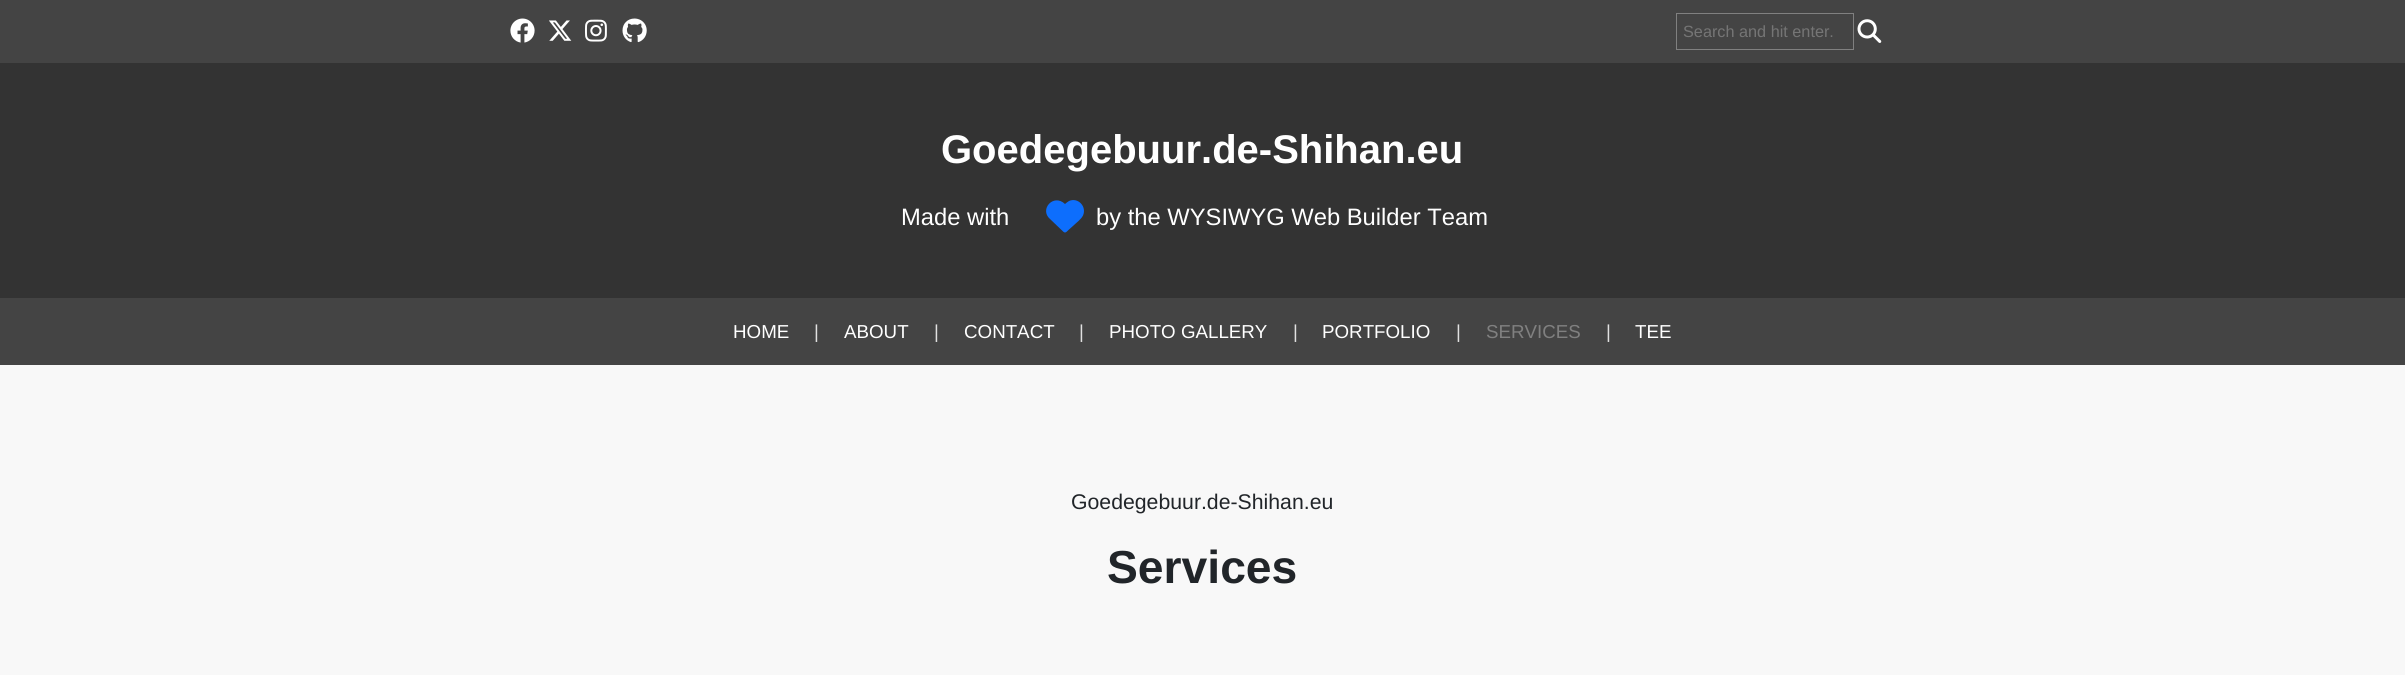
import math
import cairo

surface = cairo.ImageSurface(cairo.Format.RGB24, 2405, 675)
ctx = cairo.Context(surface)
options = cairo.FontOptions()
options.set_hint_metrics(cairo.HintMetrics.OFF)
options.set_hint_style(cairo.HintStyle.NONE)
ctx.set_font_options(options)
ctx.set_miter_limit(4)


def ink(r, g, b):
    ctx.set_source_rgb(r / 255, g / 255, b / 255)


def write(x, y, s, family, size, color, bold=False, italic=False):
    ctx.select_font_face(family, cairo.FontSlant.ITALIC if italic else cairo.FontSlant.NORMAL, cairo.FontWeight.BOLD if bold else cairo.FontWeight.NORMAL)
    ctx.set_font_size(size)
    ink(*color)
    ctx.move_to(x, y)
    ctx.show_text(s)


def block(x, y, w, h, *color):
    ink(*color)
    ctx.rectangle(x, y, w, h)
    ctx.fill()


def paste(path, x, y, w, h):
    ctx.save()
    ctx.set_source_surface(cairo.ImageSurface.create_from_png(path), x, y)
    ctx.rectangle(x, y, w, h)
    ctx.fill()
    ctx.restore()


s1 = dict(family="Liberation Sans", size=16.25, color=(117, 117, 117))
s2 = dict(family="Liberation Sans", size=40, color=(255, 255, 255), bold=True)
s3 = dict(family="Liberation Sans", size=23.75, color=(255, 255, 255))
s4 = dict(family="Liberation Sans", size=18.75, color=(255, 255, 255))
s5 = dict(family="Liberation Sans", size=18.75, color=(225, 225, 225))
s6 = dict(family="Liberation Sans", size=18.75, color=(128, 128, 128))
s7 = dict(family="Liberation Sans", size=21.25, color=(33, 37, 41))
s8 = dict(family="Liberation Sans", size=46.25, color=(33, 37, 41), bold=True)

ink(51, 51, 51)
ctx.paint()
block(0, 0, 2405, 63, 68, 68, 68)
paste("pic1.png", 510, 18, 25, 25)
paste("pic2.png", 549, 20, 23, 21)
paste("pic3.png", 585, 19, 22, 23)
paste("pic4.png", 622, 18, 25, 25)
ctx.rectangle(1676.5, 13.5, 177, 36)
ink(128, 128, 128)
ctx.set_line_width(1)
ctx.stroke()
write(1683, 37, "Search and hit enter.", **s1)
paste("pic5.png", 1857, 19, 25, 24)
write(941, 163, "Goedegebuur.de-Shihan.eu", **s2)
write(901, 225, "Made with", **s3)
ink(13, 110, 253)
ctx.new_path()
ctx.move_to(1050, 219)
ctx.line_to(1061, 229.5)
ctx.curve_to(1065, 233.5, 1065, 233.5, 1069, 229.5)
ctx.line_to(1073.5, 225.5)
ctx.curve_to(1076.5, 222.5, 1081, 219.5, 1083, 215.5)
ctx.curve_to(1087, 206.5, 1078, 197, 1069, 201)
ctx.curve_to(1067.5, 202, 1066, 203, 1065, 204)
ctx.curve_to(1053.5, 193, 1039, 209.5, 1050, 219)
ctx.close_path()
ctx.fill()
write(1096, 225, "by the WYSIWYG Web Builder Team", **s3)
block(0, 298, 2405, 67, 68, 68, 68)
write(733, 338, "HOME", **s4)
write(814, 338, "|", **s5)
write(844, 338, "ABOUT", **s4)
write(934, 338, "|", **s5)
write(964, 338, "CONTACT", **s4)
write(1079, 338, "|", **s5)
write(1109, 338, "PHOTO GALLERY", **s4)
write(1293, 338, "|", **s5)
write(1322, 338, "PORTFOLIO", **s4)
write(1456, 338, "|", **s5)
write(1486, 338, "SERVICES", **s6)
write(1606, 338, "|", **s5)
write(1635, 338, "TEE", **s4)
block(0, 365, 2405, 310, 248, 248, 248)
write(1071, 509, "Goedegebuur.de-Shihan.eu", **s7)
write(1107, 583, "Services", **s8)
surface.write_to_png("screenshot.png")
